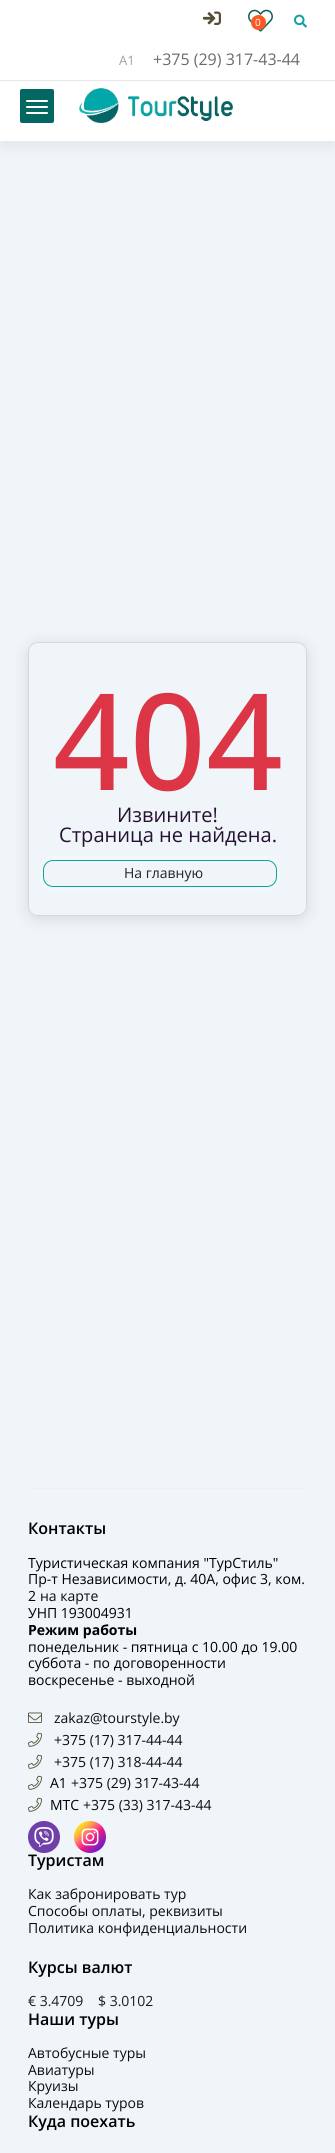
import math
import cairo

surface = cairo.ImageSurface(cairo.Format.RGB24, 335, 2153)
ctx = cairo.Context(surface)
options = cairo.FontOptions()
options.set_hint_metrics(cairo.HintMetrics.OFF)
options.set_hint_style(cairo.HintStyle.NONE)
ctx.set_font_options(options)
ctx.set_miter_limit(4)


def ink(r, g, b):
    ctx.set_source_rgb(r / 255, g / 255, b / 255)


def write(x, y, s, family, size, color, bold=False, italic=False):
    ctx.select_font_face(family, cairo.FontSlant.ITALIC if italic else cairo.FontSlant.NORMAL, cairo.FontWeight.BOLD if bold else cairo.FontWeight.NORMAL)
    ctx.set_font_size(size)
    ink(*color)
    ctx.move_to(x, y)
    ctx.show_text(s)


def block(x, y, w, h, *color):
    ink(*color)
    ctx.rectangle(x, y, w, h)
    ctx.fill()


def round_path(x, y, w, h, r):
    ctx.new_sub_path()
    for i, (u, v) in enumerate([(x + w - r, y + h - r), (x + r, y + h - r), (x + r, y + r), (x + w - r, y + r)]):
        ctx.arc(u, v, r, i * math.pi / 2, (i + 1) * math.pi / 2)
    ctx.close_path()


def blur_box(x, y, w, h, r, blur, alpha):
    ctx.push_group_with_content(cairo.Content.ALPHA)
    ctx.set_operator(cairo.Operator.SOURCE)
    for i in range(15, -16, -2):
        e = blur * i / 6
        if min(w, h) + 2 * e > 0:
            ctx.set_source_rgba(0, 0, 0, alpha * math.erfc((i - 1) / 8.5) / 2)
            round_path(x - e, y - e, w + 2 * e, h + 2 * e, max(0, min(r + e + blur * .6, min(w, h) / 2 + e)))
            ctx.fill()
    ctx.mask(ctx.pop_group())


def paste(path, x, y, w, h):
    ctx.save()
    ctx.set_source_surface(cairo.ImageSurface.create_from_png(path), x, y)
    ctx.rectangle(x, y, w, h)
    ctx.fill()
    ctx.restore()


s1 = dict(family="Open Sans", size=10, color=(255, 255, 255))
s2 = dict(family="Open Sans", size=13, color=(156, 163, 169))
s3 = dict(family="Open Sans", size=16, color=(107, 107, 107))
s4 = dict(family="Open Sans Medium", size=134, color=(220, 53, 69))
s5 = dict(family="Open Sans", size=20.1, color=(38, 17, 50))
s6 = dict(family="Open Sans", size=14, color=(35, 35, 35))
s7 = dict(family="Open Sans SemiBold", size=16, color=(0, 0, 0))
s8 = dict(family="Open Sans", size=14, color=(0, 0, 0))
s9 = dict(family="Open Sans", size=14, color=(13, 13, 13))
s10 = dict(family="Open Sans", size=14, color=(0, 0, 0), bold=True)
s11 = dict(family="Open Sans", size=14, color=(29, 29, 29))

ink(239, 245, 249)
ctx.paint()
ink(0, 0, 0)
blur_box(0, 6, 335, 141, 0, 7.5, 0.06)
block(0, 0, 335, 80, 255, 255, 255)
block(0, 80, 335, 1, 232, 232, 232)
paste("pic1.png", 203, 11, 18, 14)
paste("pic2.png", 248, 9, 25, 23)
ink(255, 87, 34)
ctx.arc(258.5, 22.5, 7.5, 0, 2 * math.pi)
ctx.fill()
write(255, 26, "0", **s1)
paste("pic3.png", 294, 14, 13, 14)
write(119, 65, "А1", **s2)
write(153, 65, "+375 (29) 317-43-44", **s3)
block(0, 81, 335, 60, 255, 255, 255)
ink(5, 103, 98)
round_path(20, 89, 34, 34, 2)
ctx.fill()
ink(255, 255, 255)
round_path(26, 100, 22, 2, 1)
ctx.fill()
round_path(26, 106, 22, 2, 1)
ctx.fill()
round_path(26, 112, 22, 2, 1)
ctx.fill()
paste("pic4.png", 79, 88, 154, 35)
ctx.save()
ctx.set_fill_rule(cairo.FillRule.EVEN_ODD)
ctx.new_path()
ctx.move_to(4, 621)
ctx.line_to(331, 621)
ctx.line_to(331, 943)
ctx.line_to(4, 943)
ctx.close_path()
ctx.move_to(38, 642)
ctx.line_to(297, 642)
ctx.curve_to(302.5, 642, 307, 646.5, 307, 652)
ctx.line_to(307, 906)
ctx.curve_to(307, 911.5, 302.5, 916, 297, 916)
ctx.line_to(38, 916)
ctx.curve_to(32.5, 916, 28, 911.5, 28, 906)
ctx.line_to(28, 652)
ctx.curve_to(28, 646.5, 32.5, 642, 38, 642)
ctx.close_path()
ctx.clip()
ink(148, 147, 147)
blur_box(28, 645, 279, 274, 10, 7.5, 0.28)
ctx.restore()
round_path(28.5, 642.5, 278, 273, 9.5)
ink(215, 215, 215)
ctx.set_line_width(1)
ctx.stroke()
write(53, 790, "404", **s4)
write(117, 822, "Извините!", **s5)
write(59, 842, "Cтраница не найдена.", **s5)
round_path(41, 858, 238, 31, 12)
ink(242, 247, 250)
ctx.set_line_width(4)
ctx.stroke()
round_path(43.5, 860.5, 233, 26, 9.5)
ink(20, 160, 162)
ctx.set_line_width(1)
ctx.stroke()
write(124, 878, "На главную", **s6)
block(28, 1488, 279, 1, 241, 240, 237)
write(28, 1534, "Контакты", **s7)
write(28, 1568, "Туристическая компания \"ТурСтиль\"", **s8)
write(28, 1584, "Пр-т Независимости, д. 40А, офис 3, ком.", **s8)
write(28, 1601, "2", **s8)
write(40, 1601, "на карте", **s9)
write(28, 1618, "УНП 193004931", **s8)
write(28, 1635, "Режим работы", **s10)
write(28, 1652, "понедельник - пятница с 10.00 до 19.00", **s8)
write(28, 1668, "суббота - по договоренности", **s8)
write(28, 1685, "воскресенье - выходной", **s8)
paste("pic5.png", 28, 1712, 14, 11)
write(54, 1723, "zakaz@tourstyle.by", **s9)
paste("pic6.png", 28, 1732, 14, 15)
write(54, 1745, "+375 (17) 317-44-44", **s9)
paste("pic6.png", 28, 1754, 14, 15)
write(54, 1767, "+375 (17) 318-44-44", **s9)
paste("pic6.png", 28, 1775, 14, 15)
write(50, 1788, "А1", **s8)
write(71, 1788, "+375 (29) 317-43-44", **s9)
paste("pic6.png", 28, 1797, 14, 15)
write(50, 1810, "МТС", **s8)
write(83, 1810, "+375 (33) 317-43-44", **s9)
paste("pic7.png", 28, 1821, 32, 32)
paste("pic8.png", 74, 1821, 32, 32)
write(28, 1866, "Туристам", **s7)
write(28, 1899, "Как забронировать тур", **s9)
write(28, 1916, "Способы оплаты, реквизиты", **s9)
write(28, 1933, "Политика конфиденциальности", **s9)
write(28, 1973, "Курсы валют", **s7)
write(28, 2006, "€ 3.4709", **s11)
write(98, 2006, "$ 3.0102", **s11)
write(28, 2025, "Наши туры", **s7)
write(28, 2058, "Автобусные туры", **s9)
write(28, 2075, "Авиатуры", **s9)
write(28, 2091, "Круизы", **s9)
write(28, 2108, "Календарь туров", **s9)
write(28, 2127, "Куда поехать", **s7)
surface.write_to_png("screenshot.png")
